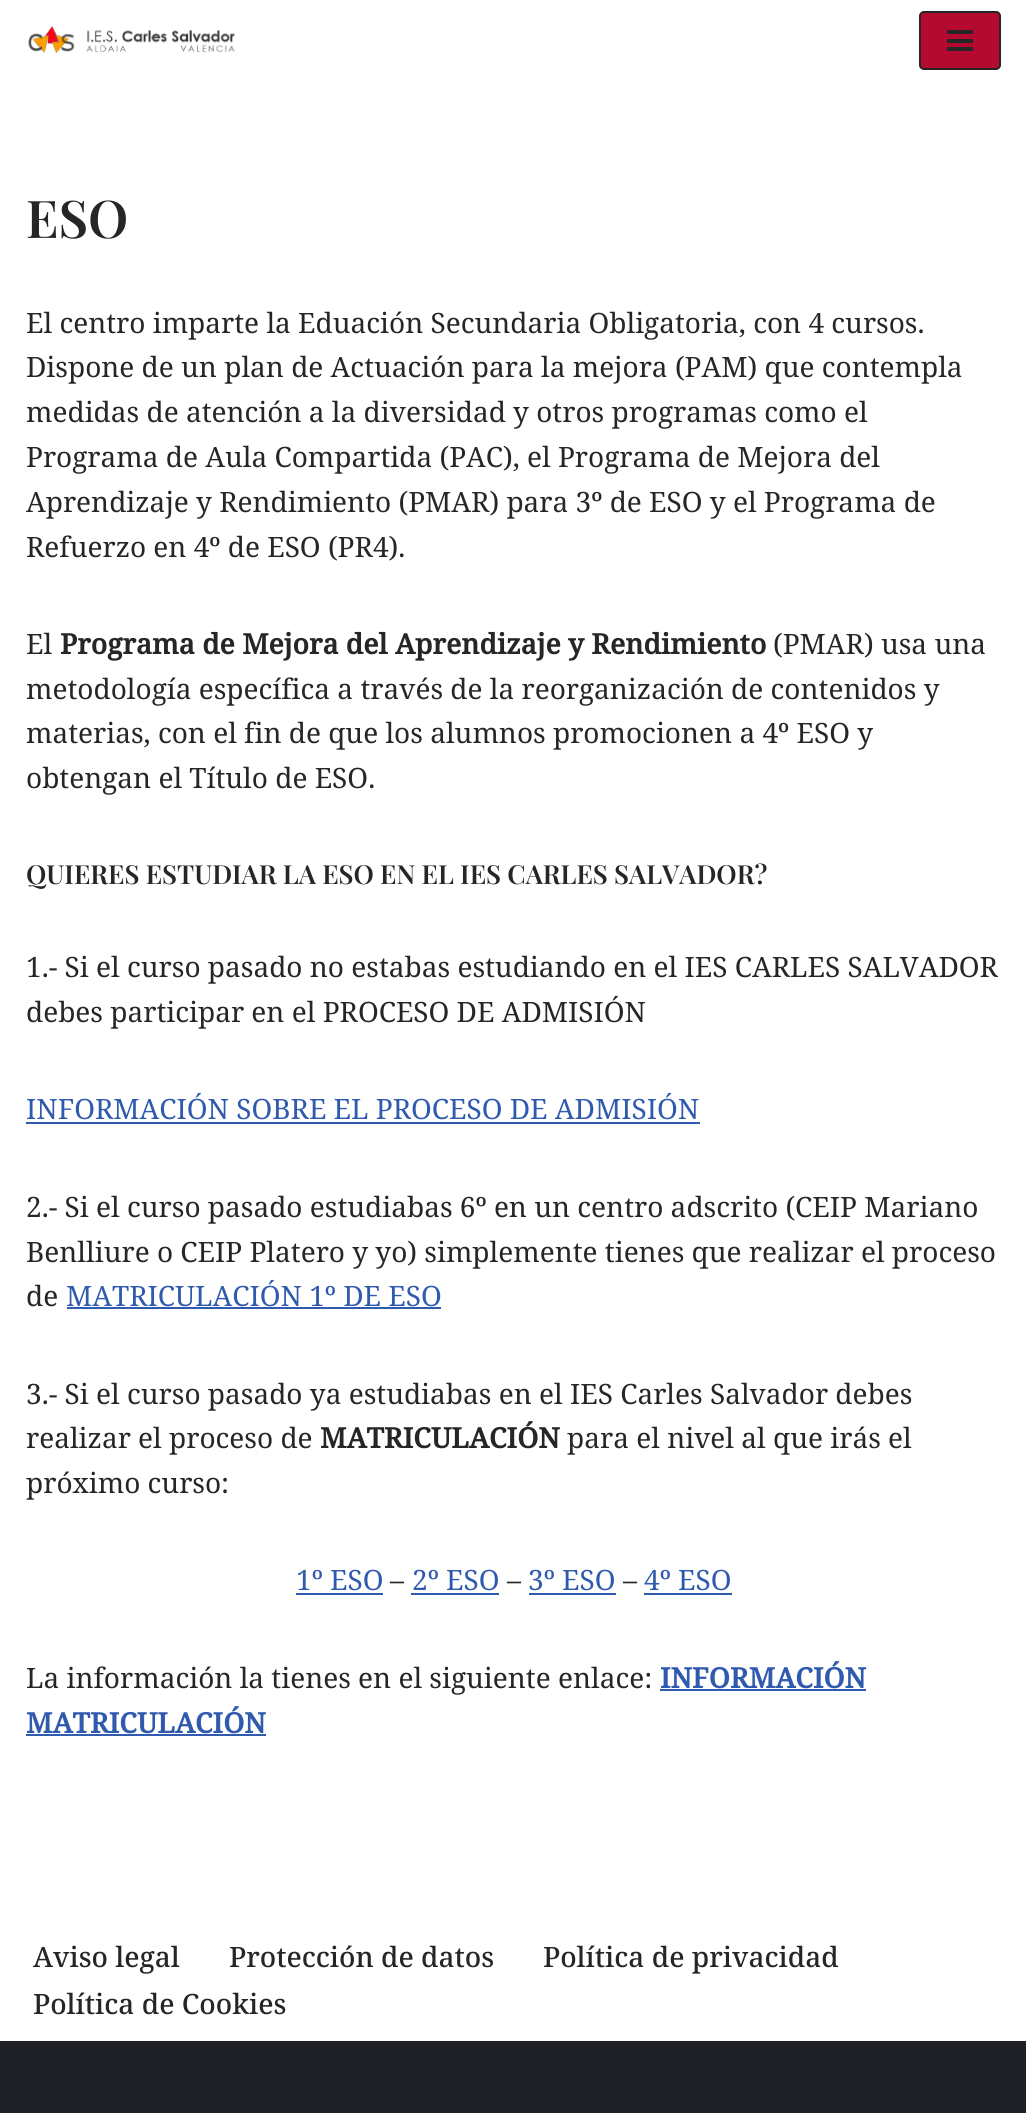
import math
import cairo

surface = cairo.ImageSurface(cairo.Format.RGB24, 1026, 2113)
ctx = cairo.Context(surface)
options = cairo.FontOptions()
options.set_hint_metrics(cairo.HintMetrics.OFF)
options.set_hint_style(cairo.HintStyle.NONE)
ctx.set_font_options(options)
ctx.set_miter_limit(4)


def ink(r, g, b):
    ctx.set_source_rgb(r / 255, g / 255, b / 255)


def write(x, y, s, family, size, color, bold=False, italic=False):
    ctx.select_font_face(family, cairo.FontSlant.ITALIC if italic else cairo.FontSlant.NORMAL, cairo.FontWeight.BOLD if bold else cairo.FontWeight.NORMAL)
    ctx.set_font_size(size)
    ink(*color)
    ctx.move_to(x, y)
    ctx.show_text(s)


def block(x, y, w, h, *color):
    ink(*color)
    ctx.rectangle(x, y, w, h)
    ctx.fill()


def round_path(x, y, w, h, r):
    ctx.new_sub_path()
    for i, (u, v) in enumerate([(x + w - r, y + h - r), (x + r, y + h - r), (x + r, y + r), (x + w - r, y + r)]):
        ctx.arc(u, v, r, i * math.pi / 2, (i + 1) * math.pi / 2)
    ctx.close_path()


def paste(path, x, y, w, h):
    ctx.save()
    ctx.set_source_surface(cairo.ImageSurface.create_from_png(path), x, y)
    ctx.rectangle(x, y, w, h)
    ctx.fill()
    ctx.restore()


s1 = dict(family="Playfair Display SemiBold", size=52, color=(39, 38, 38))
s2 = dict(family="Noto Serif", size=28, color=(39, 38, 38))
s3 = dict(family="Noto Serif", size=28, color=(39, 38, 38), bold=True)
s4 = dict(family="Playfair Display SemiBold", size=26.25, color=(39, 38, 38))
s5 = dict(family="Noto Serif", size=28, color=(47, 90, 174))
s6 = dict(family="Noto Serif", size=28, color=(47, 90, 174), bold=True)
s7 = dict(family="Noto Serif Medium", size=28, color=(39, 38, 38))

ink(255, 255, 255)
ctx.paint()
paste("pic1.png", 28, 25, 208, 29)
ink(181, 10, 47)
round_path(920, 12, 80, 57, 4)
ctx.fill_preserve()
ink(39, 38, 38)
ctx.stroke()
block(947, 30, 26, 4, 39, 38, 38)
block(947, 39, 26, 4, 39, 38, 38)
block(947, 47, 26, 4, 39, 38, 38)
write(26, 238, "ESO", **s1)
write(26, 333, "El centro imparte la Eduación Secundaria Obligatoria, con 4 cursos.", **s2)
write(26, 377, "Dispone de un plan de Actuación para la mejora (PAM) que contempla", **s2)
write(26, 422, "medidas de atención a la diversidad y otros programas como el", **s2)
write(26, 467, "Programa de Aula Compartida (PAC), el Programa de Mejora del", **s2)
write(26, 512, "Aprendizaje y Rendimiento (PMAR) para 3º de ESO y el Programa de", **s2)
write(26, 557, "Refuerzo en 4º de ESO (PR4).", **s2)
write(26, 654, "El", **s2)
write(60, 654, "Programa de Mejora del Aprendizaje y Rendimiento", **s3)
write(773, 654, "(PMAR) usa una", **s2)
write(26, 699, "metodología específica a través de la reorganización de contenidos y", **s2)
write(26, 743, "materias, con el fin de que los alumnos promocionen a 4º ESO y", **s2)
write(26, 788, "obtengan el Título de ESO.", **s2)
write(26, 884, "QUIERES ESTUDIAR LA ESO EN EL IES CARLES SALVADOR?", **s4)
write(26, 977, "1.- Si el curso pasado no estabas estudiando en el IES CARLES SALVADOR", **s2)
write(26, 1022, "debes participar en el PROCESO DE ADMISIÓN", **s2)
write(26, 1119, "INFORMACIÓN SOBRE EL PROCESO DE ADMISIÓN", **s5)
block(26, 1122, 674, 2, 47, 90, 174)
write(26, 1217, "2.- Si el curso pasado estudiabas 6º en un centro adscrito (CEIP Mariano", **s2)
write(26, 1262, "Benlliure o CEIP Platero y yo) simplemente tienes que realizar el proceso", **s2)
write(26, 1306, "de", **s2)
write(66, 1306, "MATRICULACIÓN 1º DE ESO", **s5)
block(67, 1307, 374, 2, 47, 90, 174)
write(26, 1404, "3.- Si el curso pasado ya estudiabas en el IES Carles Salvador debes", **s2)
write(26, 1448, "realizar el proceso de", **s2)
write(320, 1448, "MATRICULACIÓN", **s3)
write(567, 1448, "para el nivel al que irás el", **s2)
write(26, 1493, "próximo curso:", **s2)
write(296, 1590, "1º ESO", **s5)
block(296, 1593, 87, 2, 47, 90, 174)
write(390, 1590, "–", **s2)
write(412, 1590, "2º ESO", **s5)
block(411, 1593, 88, 2, 47, 90, 174)
write(507, 1590, "–", **s2)
write(528, 1590, "3º ESO", **s5)
block(529, 1593, 87, 2, 47, 90, 174)
write(623, 1590, "–", **s2)
write(644, 1590, "4º ESO", **s5)
block(644, 1593, 88, 2, 47, 90, 174)
write(26, 1688, "La información la tienes en el siguiente enlace:", **s2)
write(660, 1688, "INFORMACIÓN", **s6)
block(660, 1689, 206, 2, 47, 90, 174)
write(26, 1733, "MATRICULACIÓN", **s6)
block(26, 1734, 240, 2, 47, 90, 174)
write(33, 1967, "Aviso legal", **s7)
write(229, 1967, "Protección de datos", **s7)
write(543, 1967, "Política de privacidad", **s7)
write(33, 2014, "Política de Cookies", **s7)
block(0, 2041, 1026, 72, 31, 32, 37)
surface.write_to_png("screenshot.png")
